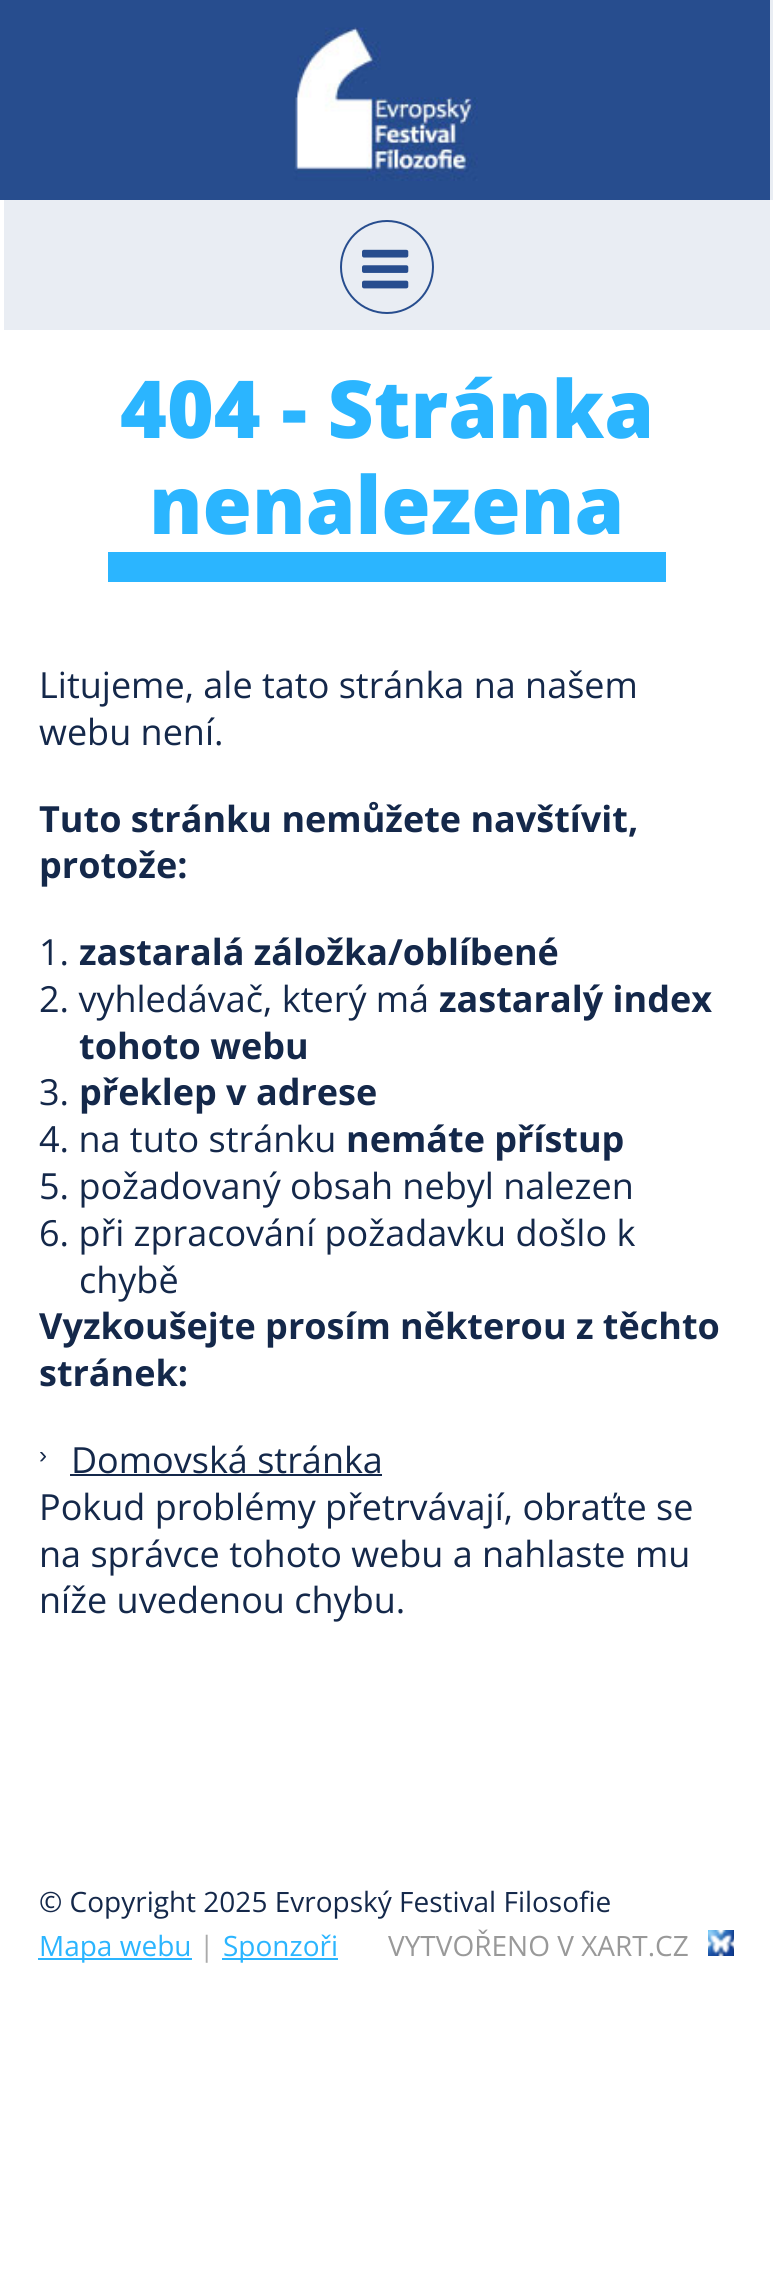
import math
import cairo

surface = cairo.ImageSurface(cairo.Format.RGB24, 773, 2296)
ctx = cairo.Context(surface)
options = cairo.FontOptions()
options.set_hint_metrics(cairo.HintMetrics.OFF)
options.set_hint_style(cairo.HintStyle.NONE)
ctx.set_font_options(options)
ctx.set_miter_limit(4)


def ink(r, g, b):
    ctx.set_source_rgb(r / 255, g / 255, b / 255)


def write(x, y, s, family, size, color, bold=False, italic=False):
    ctx.select_font_face(family, cairo.FontSlant.ITALIC if italic else cairo.FontSlant.NORMAL, cairo.FontWeight.BOLD if bold else cairo.FontWeight.NORMAL)
    ctx.set_font_size(size)
    ink(*color)
    ctx.move_to(x, y)
    ctx.show_text(s)


def block(x, y, w, h, *color):
    ink(*color)
    ctx.rectangle(x, y, w, h)
    ctx.fill()


def paste(path, x, y, w, h):
    ctx.save()
    ctx.set_source_surface(cairo.ImageSurface.create_from_png(path), x, y)
    ctx.rectangle(x, y, w, h)
    ctx.fill()
    ctx.restore()


s1 = dict(family="Open Sans ExtraBold", size=80, color=(43, 181, 255))
s2 = dict(family="Open Sans", size=36, color=(20, 40, 74))
s3 = dict(family="Open Sans", size=36, color=(20, 40, 74), bold=True)
s4 = dict(family="Liberation Sans", size=24, color=(20, 40, 74))
s5 = dict(family="Open Sans", size=28, color=(20, 40, 74))
s6 = dict(family="Open Sans", size=28, color=(43, 181, 255))
s7 = dict(family="Open Sans", size=28, color=(170, 170, 170))
s8 = dict(family="Open Sans", size=28, color=(153, 153, 153))

ink(255, 255, 255)
ctx.paint()
block(0, 0, 770, 200, 39, 77, 142)
block(770, 0, 3, 200, 233, 237, 243)
paste("pic1.png", 293, 27, 185, 154)
block(4, 200, 766, 130, 233, 237, 243)
ctx.arc(387, 267, 46, 0, 2 * math.pi)
ink(39, 77, 142)
ctx.stroke()
paste("pic2.png", 362, 249, 47, 40)
write(120, 438, "404 - Stránka", **s1)
write(149, 534, "nenalezena", **s1)
block(108, 552, 558, 30, 43, 181, 255)
write(39, 698, "Litujeme, ale tato stránka na našem", **s2)
write(39, 745, "webu není.", **s2)
write(39, 832, "Tuto stránku nemůžete navštívit,", **s3)
write(39, 878, "protože:", **s3)
write(39, 965, "1.", **s2)
write(79, 965, "zastaralá záložka/oblíbené", **s3)
write(39, 1012, "2. vyhledávač, který má", **s2)
write(439, 1012, "zastaralý index", **s3)
write(79, 1059, "tohoto webu", **s3)
write(39, 1105, "3.", **s2)
write(79, 1105, "překlep v adrese", **s3)
write(39, 1152, "4. na tuto stránku", **s2)
write(346, 1152, "nemáte přístup", **s3)
write(39, 1199, "5. požadovaný obsah nebyl nalezen", **s2)
write(39, 1246, "6. při zpracování požadavku došlo k", **s2)
write(79, 1293, "chybě", **s2)
write(39, 1339, "Vyzkoušejte prosím některou z těchto", **s3)
write(39, 1386, "stránek:", **s3)
write(39, 1463, "›", **s4)
write(71, 1473, "Domovská stránka", **s2)
block(70, 1474, 312, 2, 20, 40, 74)
write(39, 1520, "Pokud problémy přetrvávají, obraťte se", **s2)
write(39, 1567, "na správce tohoto webu a nahlaste mu", **s2)
write(39, 1613, "níže uvedenou chybu.", **s2)
write(39, 1912, "© Copyright 2025 Evropský Festival Filosofie", **s5)
block(38, 1958, 154, 2, 43, 181, 255)
write(39, 1956, "Mapa webu", **s6)
write(199, 1956, "|", **s7)
block(222, 1958, 116, 2, 43, 181, 255)
write(223, 1956, "Sponzoři", **s6)
write(388, 1956, "VYTVOŘENO V XART.CZ", **s8)
paste("pic3.png", 708, 1930, 26, 26)
surface.write_to_png("screenshot.png")
